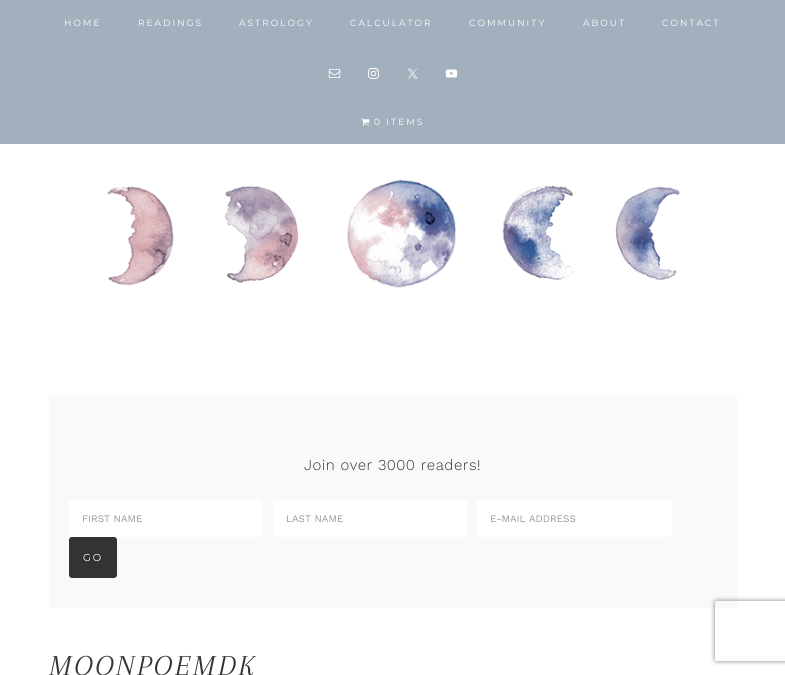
import math
import cairo

surface = cairo.ImageSurface(cairo.Format.RGB24, 785, 675)
ctx = cairo.Context(surface)
options = cairo.FontOptions()
options.set_hint_metrics(cairo.HintMetrics.OFF)
options.set_hint_style(cairo.HintStyle.NONE)
ctx.set_font_options(options)
ctx.set_miter_limit(4)


def ink(r, g, b):
    ctx.set_source_rgb(r / 255, g / 255, b / 255)


def write(x, y, s, family, size, color, bold=False, italic=False):
    ctx.select_font_face(family, cairo.FontSlant.ITALIC if italic else cairo.FontSlant.NORMAL, cairo.FontWeight.BOLD if bold else cairo.FontWeight.NORMAL)
    ctx.set_font_size(size)
    ink(*color)
    ctx.move_to(x, y)
    ctx.show_text(s)


def write_spaced(x, y, s, letter, word):
    ctx.move_to(x, y)
    for ch in s:
        ctx.show_text(ch)
        ctx.rel_move_to(letter + word * (ch == ' '), 0)


def block(x, y, w, h, *color):
    ink(*color)
    ctx.rectangle(x, y, w, h)
    ctx.fill()


def round_path(x, y, w, h, r):
    ctx.new_sub_path()
    for i, (u, v) in enumerate([(x + w - r, y + h - r), (x + r, y + h - r), (x + r, y + r), (x + w - r, y + r)]):
        ctx.arc(u, v, r, i * math.pi / 2, (i + 1) * math.pi / 2)
    ctx.close_path()


def blur_box(x, y, w, h, r, blur, alpha):
    ctx.push_group_with_content(cairo.Content.ALPHA)
    ctx.set_operator(cairo.Operator.SOURCE)
    for i in range(15, -16, -2):
        e = blur * i / 6
        if min(w, h) + 2 * e > 0:
            ctx.set_source_rgba(0, 0, 0, alpha * math.erfc((i - 1) / 8.5) / 2)
            round_path(x - e, y - e, w + 2 * e, h + 2 * e, max(0, min(r + e + blur * .6, min(w, h) / 2 + e)))
            ctx.fill()
    ctx.mask(ctx.pop_group())


def paste(path, x, y, w, h):
    ctx.save()
    ctx.set_source_surface(cairo.ImageSurface.create_from_png(path), x, y)
    ctx.rectangle(x, y, w, h)
    ctx.fill()
    ctx.restore()


s1 = dict(family="Work Sans", size=10, color=(153, 153, 153))

ink(255, 255, 255)
ctx.paint()
block(0, 0, 785, 144, 162, 175, 188)
ctx.select_font_face("Montserrat Thin")
ctx.set_font_size(9)
ink(255, 255, 255)
write_spaced(64, 26, "HOME", 2, 0)
write_spaced(138, 26, "READINGS", 2, 0)
write_spaced(239, 26, "ASTROLOGY", 2, 0)
write_spaced(350, 26, "CALCULATOR", 2, 0)
write_spaced(469, 26, "COMMUNITY", 2, 0)
write_spaced(583, 26, "ABOUT", 2, 0)
write_spaced(662, 26, "CONTACT", 2, 0)
paste("pic1.png", 328, 69, 13, 9)
paste("pic2.png", 368, 68, 11, 11)
paste("pic3.png", 408, 68, 10, 11)
paste("pic4.png", 445, 69, 13, 9)
paste("pic5.png", 361, 118, 9, 8)
write_spaced(374, 125, "0 ITEMS", 2, 0)
paste("pic6.png", 107, 144, 573, 144)
block(49, 395, 688, 213, 249, 249, 249)
ctx.select_font_face("Work Sans Light")
ctx.set_font_size(15)
ink(51, 51, 51)
write_spaced(304, 470, "Join over 3000 readers!", 0.5, 0)
ink(255, 255, 255)
round_path(69, 500, 194, 37, 3)
ctx.fill()
write(82, 522, "FIRST NAME", **s1)
ink(255, 255, 255)
round_path(273, 500, 194, 37, 3)
ctx.fill()
write(286, 522, "LAST NAME", **s1)
ink(255, 255, 255)
round_path(477, 500, 195, 37, 3)
ctx.fill()
write(490, 522, "E-MAIL ADDRESS", **s1)
ink(51, 51, 51)
round_path(69.5, 537.5, 47, 40, 2.5)
ctx.fill_preserve()
ctx.set_line_width(1)
ctx.stroke()
ctx.select_font_face("Montserrat Thin")
ink(255, 255, 255)
write_spaced(83, 561, "GO", 2, 0)
ctx.select_font_face("Arapey", cairo.FontSlant.ITALIC)
ctx.set_font_size(30)
ink(51, 51, 51)
write_spaced(49, 675, "MOONPOEMDK", 2, 0)
ctx.save()
ctx.set_fill_rule(cairo.FillRule.EVEN_ODD)
ctx.new_path()
ctx.move_to(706, 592)
ctx.line_to(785, 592)
ctx.line_to(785, 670)
ctx.line_to(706, 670)
ctx.close_path()
ctx.move_to(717, 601)
ctx.line_to(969, 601)
ctx.curve_to(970, 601, 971, 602, 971, 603)
ctx.line_to(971, 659)
ctx.curve_to(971, 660, 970, 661, 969, 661)
ctx.line_to(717, 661)
ctx.curve_to(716, 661, 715, 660, 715, 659)
ctx.line_to(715, 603)
ctx.curve_to(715, 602, 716, 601, 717, 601)
ctx.close_path()
ctx.clip()
ink(128, 128, 128)
blur_box(715, 601, 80, 60, 2, 2.5, 1)
ctx.restore()
surface.write_to_png("screenshot.png")
